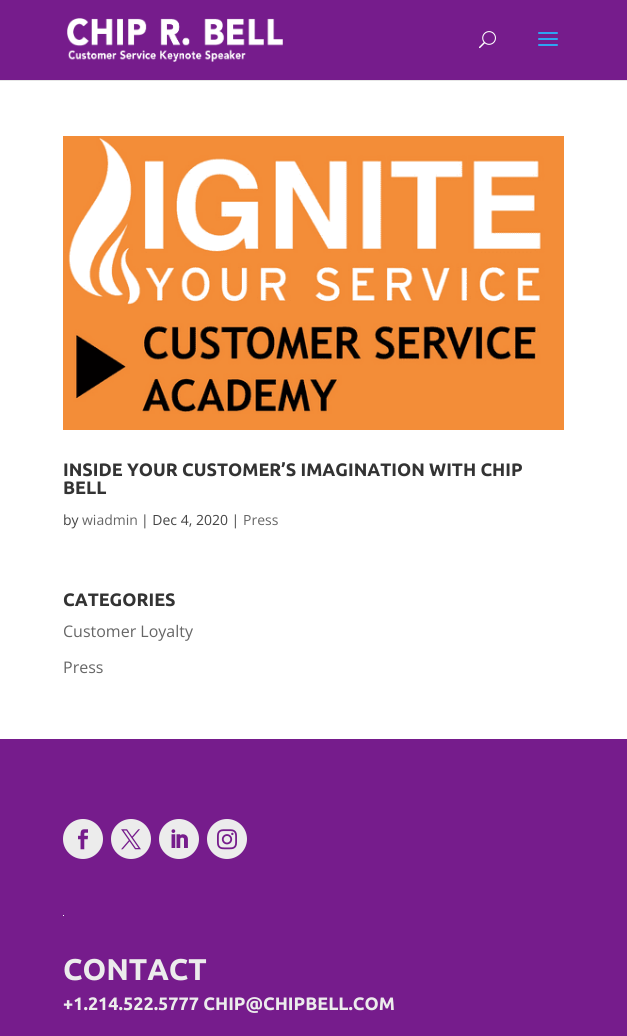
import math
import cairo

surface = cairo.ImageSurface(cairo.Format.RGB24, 627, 1036)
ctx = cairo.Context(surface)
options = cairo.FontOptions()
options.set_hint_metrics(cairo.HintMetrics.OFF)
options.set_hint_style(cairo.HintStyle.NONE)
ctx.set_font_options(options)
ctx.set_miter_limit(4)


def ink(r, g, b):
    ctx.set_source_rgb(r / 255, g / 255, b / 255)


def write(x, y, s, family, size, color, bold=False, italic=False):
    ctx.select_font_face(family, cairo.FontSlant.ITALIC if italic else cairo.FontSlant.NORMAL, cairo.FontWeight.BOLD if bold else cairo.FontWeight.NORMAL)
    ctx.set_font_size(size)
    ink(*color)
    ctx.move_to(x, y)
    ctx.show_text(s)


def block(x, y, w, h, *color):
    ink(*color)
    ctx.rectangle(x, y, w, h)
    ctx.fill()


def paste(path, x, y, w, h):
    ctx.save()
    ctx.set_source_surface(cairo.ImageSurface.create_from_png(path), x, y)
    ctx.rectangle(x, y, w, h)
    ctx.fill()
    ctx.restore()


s1 = dict(family="Ubuntu", size=18, color=(51, 51, 51), bold=True)
s2 = dict(family="Open Sans", size=14, color=(68, 68, 68))
s3 = dict(family="Open Sans", size=14, color=(102, 102, 102))
s4 = dict(family="Open Sans", size=16, color=(102, 102, 102))
s5 = dict(family="Ubuntu", size=30, color=(236, 236, 236), bold=True)
s6 = dict(family="Ubuntu", size=18, color=(236, 236, 236), bold=True)

ink(255, 255, 255)
ctx.paint()
block(0, 80, 627, 1, 230, 230, 230)
block(0, 0, 627, 80, 118, 28, 140)
paste("pic1.png", 67, 18, 216, 44)
paste("pic2.png", 479, 31, 17, 18)
paste("pic3.png", 538, 32, 20, 14)
paste("pic4.png", 63, 136, 501, 294)
write(63, 476, "INSIDE YOUR CUSTOMER’S IMAGINATION WITH CHIP", **s1)
write(63, 494, "BELL", **s1)
write(63, 525, "by", **s2)
write(82, 525, "wiadmin", **s3)
write(141, 525, "| Dec 4, 2020 |", **s2)
write(243, 525, "Press", **s3)
write(63, 606, "CATEGORIES", **s1)
write(63, 637, "Customer Loyalty", **s4)
write(63, 673, "Press", **s4)
block(0, 739, 627, 297, 118, 28, 140)
ink(236, 236, 236)
ctx.new_path()
ctx.arc(83, 839, 20, 0, 2 * math.pi)
ctx.fill()
paste("pic5.png", 78, 829, 10, 21)
ctx.arc(131, 839, 20, 0, 2 * math.pi)
ctx.fill()
paste("pic6.png", 121, 829, 20, 21)
ctx.arc(179, 839, 20, 0, 2 * math.pi)
ctx.fill()
paste("pic7.png", 171, 829, 17, 19)
ctx.arc(227, 839, 20, 0, 2 * math.pi)
ctx.fill()
paste("pic8.png", 217, 829, 20, 21)
block(63, 915, 1, 1, 255, 255, 255)
write(63, 980, "CONTACT", **s5)
write(63, 1010, "+1.214.522.5777 CHIP@CHIPBELL.COM", **s6)
surface.write_to_png("screenshot.png")
